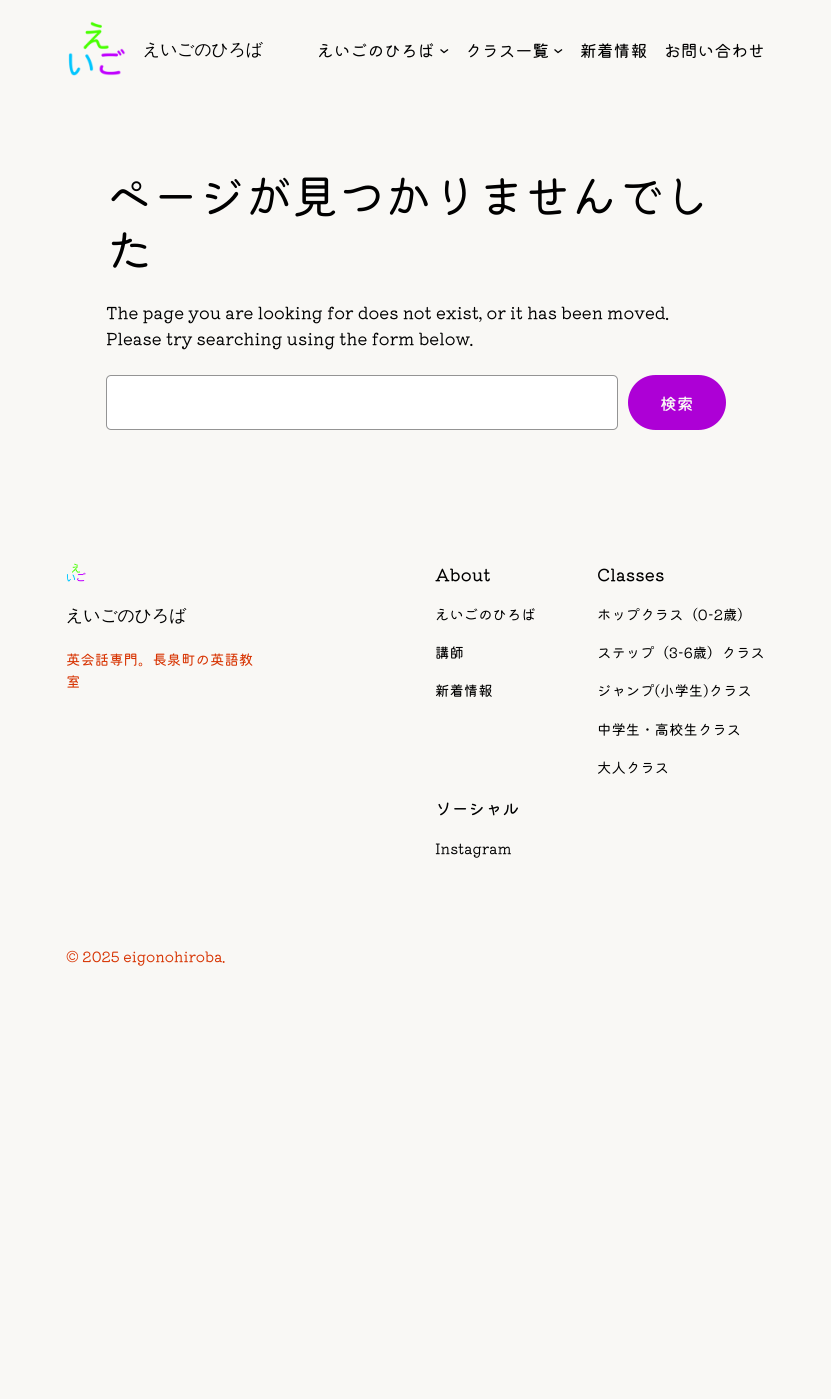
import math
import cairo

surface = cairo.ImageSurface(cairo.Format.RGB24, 831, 1399)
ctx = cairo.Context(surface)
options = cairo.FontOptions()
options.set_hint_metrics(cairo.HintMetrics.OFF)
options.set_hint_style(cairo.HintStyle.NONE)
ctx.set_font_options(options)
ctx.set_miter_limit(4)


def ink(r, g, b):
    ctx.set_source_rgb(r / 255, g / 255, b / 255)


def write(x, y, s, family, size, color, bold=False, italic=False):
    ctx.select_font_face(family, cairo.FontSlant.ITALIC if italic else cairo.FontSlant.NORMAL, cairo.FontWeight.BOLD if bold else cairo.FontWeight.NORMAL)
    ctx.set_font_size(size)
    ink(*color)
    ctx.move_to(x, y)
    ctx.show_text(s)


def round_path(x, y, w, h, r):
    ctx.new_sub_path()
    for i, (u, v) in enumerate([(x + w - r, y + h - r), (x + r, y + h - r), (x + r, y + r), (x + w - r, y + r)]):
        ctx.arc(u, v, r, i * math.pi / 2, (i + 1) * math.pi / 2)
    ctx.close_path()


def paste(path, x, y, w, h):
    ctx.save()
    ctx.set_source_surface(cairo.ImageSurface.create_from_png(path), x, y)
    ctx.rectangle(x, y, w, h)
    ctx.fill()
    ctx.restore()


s1 = dict(family="WenQuanYi Zen Hei Medium", size=16.75, color=(0, 0, 0))
s2 = dict(family="Kiwi Maru", size=16.8, color=(0, 0, 0))
s3 = dict(family="Kiwi Maru", size=46.5, color=(0, 0, 0))
s4 = dict(family="Kiwi Maru Medium", size=16.8, color=(249, 248, 245))
s5 = dict(family="WenQuanYi Zen Hei Medium", size=16.8, color=(0, 0, 0))
s6 = dict(family="Kiwi Maru", size=14.4, color=(215, 51, 1))
s7 = dict(family="Kiwi Maru Medium", size=16.8, color=(0, 0, 0))
s8 = dict(family="Kiwi Maru", size=14.4, color=(0, 0, 0))

ink(249, 248, 245)
ctx.paint()
paste("pic1.png", 68, 21, 58, 55)
write(143, 55, "えいごのひろば", **s1)
write(317, 57, "えいごのひろば", **s2)
ctx.new_path()
ctx.move_to(440.5, 49.5)
ctx.line_to(444, 52.5)
ctx.line_to(448, 49.5)
ctx.set_line_width(1.3)
ctx.stroke()
write(465, 57, "クラス一覧", **s2)
ctx.new_path()
ctx.move_to(554.5, 49.5)
ctx.line_to(558, 52.5)
ctx.line_to(562, 49.5)
ctx.stroke()
write(580, 57, "新着情報", **s2)
write(664, 57, "お問い合わせ", **s2)
write(106, 214, "ページが見つかりませんでし", **s3)
write(106, 268, "た", **s3)
write(106, 319, "The page you are looking for does not exist, or it has been moved.", **s2)
write(106, 345, "Please try searching using the form below.", **s2)
ink(255, 255, 255)
round_path(106.5, 375.5, 511, 54, 4.5)
ctx.fill_preserve()
ink(148, 148, 148)
ctx.set_line_width(1)
ctx.stroke()
ink(173, 0, 214)
round_path(628, 375, 98, 55, 27.5)
ctx.fill()
write(660, 410, "検索", **s4)
paste("pic2.png", 66, 563, 20, 19)
write(66, 621, "えいごのひろば", **s5)
write(66, 665, "英会話専門。長泉町の英語教", **s6)
write(66, 687, "室", **s6)
write(435, 581, "About", **s7)
write(435, 620, "えいごのひろば", **s8)
write(435, 658, "講師", **s8)
write(435, 696, "新着情報", **s8)
write(597, 581, "Classes", **s7)
write(597, 620, "ホップクラス（0−2歳）", **s8)
write(597, 658, "ステップ（3−6歳）クラス", **s8)
write(597, 696, "ジャンプ(小学生)クラス", **s8)
write(597, 735, "中学生・高校生クラス", **s8)
write(597, 773, "大人クラス", **s8)
write(435, 815, "ソーシャル", **s7)
write(435, 854, "Instagram", **s8)
write(66, 962, "© 2025 eigonohiroba.", **s6)
surface.write_to_png("screenshot.png")
